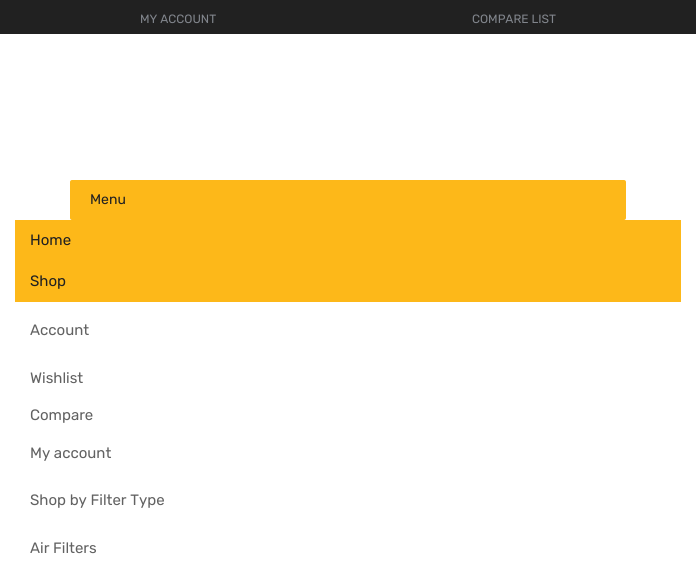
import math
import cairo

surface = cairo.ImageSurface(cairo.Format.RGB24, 696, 570)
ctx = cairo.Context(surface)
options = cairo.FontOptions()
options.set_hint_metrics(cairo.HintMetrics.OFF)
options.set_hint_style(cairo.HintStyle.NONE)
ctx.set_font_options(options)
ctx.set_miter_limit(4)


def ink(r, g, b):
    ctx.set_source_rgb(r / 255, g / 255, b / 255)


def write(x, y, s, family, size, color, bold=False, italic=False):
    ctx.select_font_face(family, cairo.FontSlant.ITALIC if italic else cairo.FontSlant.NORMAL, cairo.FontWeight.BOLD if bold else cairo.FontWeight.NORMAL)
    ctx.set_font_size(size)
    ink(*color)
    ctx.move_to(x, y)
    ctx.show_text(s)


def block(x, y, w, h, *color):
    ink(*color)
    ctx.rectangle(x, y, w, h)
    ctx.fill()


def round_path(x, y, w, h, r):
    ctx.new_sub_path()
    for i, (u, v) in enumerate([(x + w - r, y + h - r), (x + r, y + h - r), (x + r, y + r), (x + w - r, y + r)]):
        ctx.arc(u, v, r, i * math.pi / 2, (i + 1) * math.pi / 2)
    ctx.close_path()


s1 = dict(family="Rubik", size=12, color=(129, 133, 140))
s2 = dict(family="Rubik", size=14, color=(33, 33, 33))
s3 = dict(family="Rubik", size=15, color=(33, 33, 33))
s4 = dict(family="Rubik", size=15, color=(98, 98, 98))

ink(255, 255, 255)
ctx.paint()
block(0, 0, 696, 34, 33, 33, 33)
write(140, 23, "MY ACCOUNT", **s1)
write(472, 23, "COMPARE LIST", **s1)
ink(253, 184, 25)
round_path(70, 180, 556, 40, 2)
ctx.fill()
write(90, 204, "Menu", **s2)
block(15, 220, 666, 82, 253, 184, 25)
write(30, 245, "Home", **s3)
write(30, 286, "Shop", **s3)
write(30, 335, "Account", **s4)
write(30, 383, "Wishlist", **s4)
write(30, 420, "Compare", **s4)
write(30, 458, "My account", **s4)
write(30, 505, "Shop by Filter Type", **s4)
write(30, 553, "Air Filters", **s4)
surface.write_to_png("screenshot.png")
